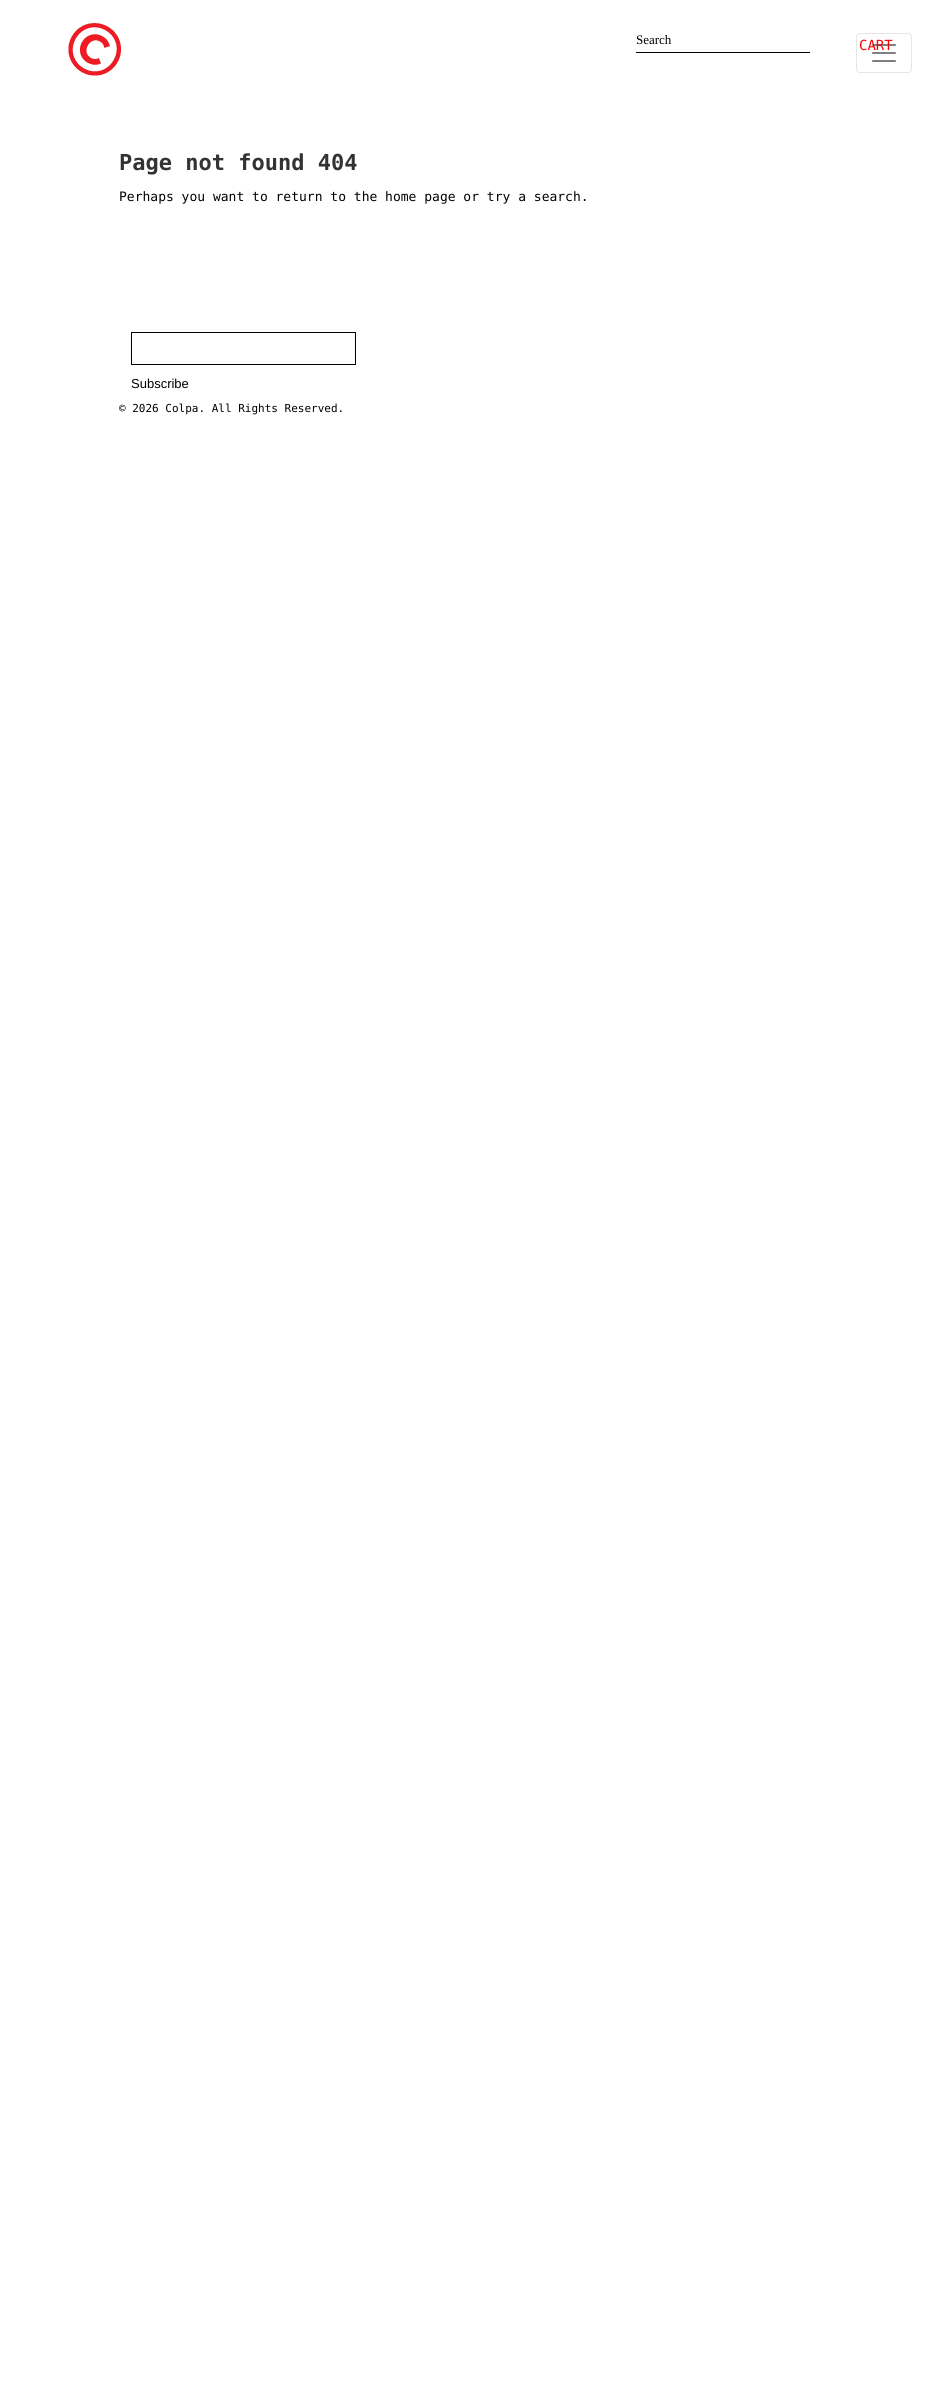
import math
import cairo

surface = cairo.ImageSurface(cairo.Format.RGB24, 928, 2388)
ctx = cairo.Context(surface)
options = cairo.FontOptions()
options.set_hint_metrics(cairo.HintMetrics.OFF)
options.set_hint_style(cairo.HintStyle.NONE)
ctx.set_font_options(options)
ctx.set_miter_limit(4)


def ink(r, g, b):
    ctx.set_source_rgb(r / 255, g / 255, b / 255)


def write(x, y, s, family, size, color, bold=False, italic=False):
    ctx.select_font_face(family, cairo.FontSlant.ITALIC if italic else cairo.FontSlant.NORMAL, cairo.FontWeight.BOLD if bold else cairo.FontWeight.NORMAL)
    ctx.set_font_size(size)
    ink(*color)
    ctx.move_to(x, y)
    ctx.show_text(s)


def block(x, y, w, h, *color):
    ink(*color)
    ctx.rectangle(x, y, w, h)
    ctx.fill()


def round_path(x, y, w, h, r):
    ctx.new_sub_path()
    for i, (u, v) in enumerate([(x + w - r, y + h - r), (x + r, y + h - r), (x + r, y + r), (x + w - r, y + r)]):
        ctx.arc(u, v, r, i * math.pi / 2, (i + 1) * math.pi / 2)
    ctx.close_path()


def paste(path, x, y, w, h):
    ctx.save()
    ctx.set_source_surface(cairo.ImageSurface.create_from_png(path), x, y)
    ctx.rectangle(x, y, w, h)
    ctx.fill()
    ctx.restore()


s1 = dict(family="Liberation Serif", size=13, color=(0, 0, 0))
s2 = dict(family="DejaVu Sans Mono", size=14, color=(255, 0, 0))
s3 = dict(family="DejaVu Sans Mono", size=22, color=(51, 51, 51), bold=True)
s4 = dict(family="DejaVu Sans Mono", size=13, color=(0, 0, 0))
s5 = dict(family="Liberation Sans", size=13, color=(0, 0, 0))
s6 = dict(family="DejaVu Sans Mono", size=11, color=(0, 0, 0))

ink(255, 255, 255)
ctx.paint()
paste("pic1.png", 68, 23, 53, 53)
round_path(856.5, 33.5, 55, 39, 3.5)
ink(230, 230, 230)
ctx.set_line_width(1)
ctx.stroke()
paste("pic2.png", 872, 44, 24, 18)
block(636, 52, 174, 1, 0, 0, 0)
write(636, 44, "Search", **s1)
write(859, 50, "CART", **s2)
write(119, 170, "Page not found 404", **s3)
write(119, 201, "Perhaps you want to return to the home page or try a search.", **s4)
ctx.rectangle(131.5, 332.5, 224, 32)
ctx.stroke()
write(131, 388, "Subscribe", **s5)
write(119, 412, "© 2026 Colpa. All Rights Reserved.", **s6)
surface.write_to_png("screenshot.png")
